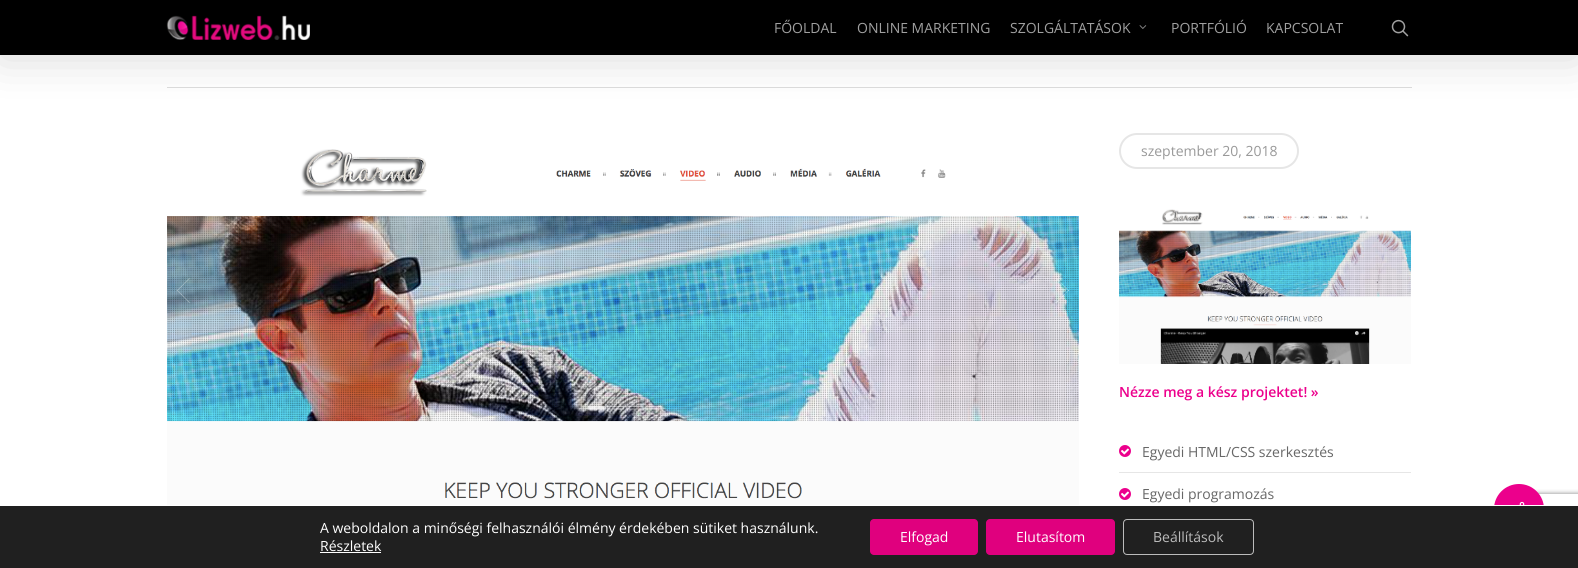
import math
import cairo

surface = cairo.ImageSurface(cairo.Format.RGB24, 1578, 568)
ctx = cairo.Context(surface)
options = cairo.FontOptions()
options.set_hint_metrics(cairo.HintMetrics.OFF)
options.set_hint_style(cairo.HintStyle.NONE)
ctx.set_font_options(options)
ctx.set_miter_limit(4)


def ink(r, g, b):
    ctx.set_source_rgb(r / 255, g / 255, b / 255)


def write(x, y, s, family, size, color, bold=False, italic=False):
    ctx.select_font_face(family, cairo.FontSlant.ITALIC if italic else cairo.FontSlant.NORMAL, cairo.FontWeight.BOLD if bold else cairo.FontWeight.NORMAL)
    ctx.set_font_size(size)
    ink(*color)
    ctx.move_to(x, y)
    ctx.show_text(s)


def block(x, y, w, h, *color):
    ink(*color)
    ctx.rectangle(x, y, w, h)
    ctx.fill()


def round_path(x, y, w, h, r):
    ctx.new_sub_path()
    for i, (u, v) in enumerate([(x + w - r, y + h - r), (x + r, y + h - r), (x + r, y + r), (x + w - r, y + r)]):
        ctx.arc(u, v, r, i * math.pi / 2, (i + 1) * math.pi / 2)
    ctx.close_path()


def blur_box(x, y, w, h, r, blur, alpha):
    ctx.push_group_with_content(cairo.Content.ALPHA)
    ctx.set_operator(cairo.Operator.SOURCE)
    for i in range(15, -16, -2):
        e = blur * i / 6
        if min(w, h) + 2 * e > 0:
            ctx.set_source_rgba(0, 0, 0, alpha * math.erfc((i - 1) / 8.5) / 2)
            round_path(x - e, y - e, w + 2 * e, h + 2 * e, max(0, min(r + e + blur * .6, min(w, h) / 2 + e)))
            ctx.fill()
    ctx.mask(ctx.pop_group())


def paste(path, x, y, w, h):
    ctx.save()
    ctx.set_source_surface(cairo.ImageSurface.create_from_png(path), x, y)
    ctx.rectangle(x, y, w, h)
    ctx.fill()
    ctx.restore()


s1 = dict(family="Open Sans", size=14, color=(160, 160, 160))
s2 = dict(family="Open Sans", size=14, color=(153, 153, 153))
s3 = dict(family="Open Sans SemiBold", size=14, color=(236, 0, 140))
s4 = dict(family="Open Sans", size=14, color=(103, 103, 103))
s5 = dict(family="Open Sans", size=14, color=(255, 255, 255))
s6 = dict(family="Open Sans", size=14, color=(188, 188, 188))

ink(255, 255, 255)
ctx.paint()
block(167, 87, 1245, 1, 221, 221, 221)
ink(0, 0, 0)
blur_box(0, 3, 1578, 55, 0, 22.5, 0.15)
block(0, 0, 1578, 55, 0, 0, 0)
paste("pic1.png", 166, 15, 144, 25)
write(774, 33, "FŐOLDAL", **s1)
write(857, 33, "ONLINE MARKETING", **s1)
write(1010, 33, "SZOLGÁLTATÁSOK", **s1)
paste("pic2.png", 1139, 25, 8, 4)
write(1171, 33, "PORTFÓLIÓ", **s1)
write(1266, 33, "KAPCSOLAT", **s1)
paste("pic3.png", 1391, 19, 18, 18)
paste("pic4.png", 167, 149, 912, 356)
round_path(1120, 134, 178, 34, 17)
ink(230, 230, 230)
ctx.stroke()
write(1141, 156, "szeptember 20, 2018", **s2)
paste("pic5.png", 1119, 209, 292, 155)
write(1119, 397, "Nézze meg a kész projektet! »", **s3)
block(1119, 472, 292, 1, 230, 230, 230)
paste("pic6.png", 1119, 445, 12, 12)
write(1142, 457, "Egyedi HTML/CSS szerkesztés", **s4)
paste("pic6.png", 1119, 488, 12, 12)
write(1142, 499, "Egyedi programozás", **s4)
ctx.save()
ctx.rectangle(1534, 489, 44, 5)
ctx.clip()
ink(128, 128, 128)
blur_box(1508, 494, 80, 60, 2, 2.5, 1)
ctx.restore()
ink(236, 0, 140)
ctx.arc(1519, 509, 25, 0, 2 * math.pi)
ctx.fill()
paste("pic7.png", 1519, 501, 6, 4)
block(0, 506, 1578, 62, 32, 32, 32)
block(1494, 505, 50, 1, 255, 255, 255)
write(320, 533, "A weboldalon a minőségi felhasználói élmény érdekében sütiket használunk.", **s5)
write(320, 551, "Részletek", **s5)
block(320, 552, 61, 1, 255, 255, 255)
ink(224, 0, 126)
round_path(870, 519, 108, 36, 4)
ctx.fill()
write(900, 542, "Elfogad", **s5)
ink(224, 0, 126)
round_path(986, 519, 129, 36, 4)
ctx.fill()
write(1016, 542, "Elutasítom", **s5)
round_path(1123.5, 519.5, 130, 35, 3.5)
ink(188, 188, 188)
ctx.set_line_width(1)
ctx.stroke()
write(1153, 542, "Beállítások", **s6)
surface.write_to_png("screenshot.png")
